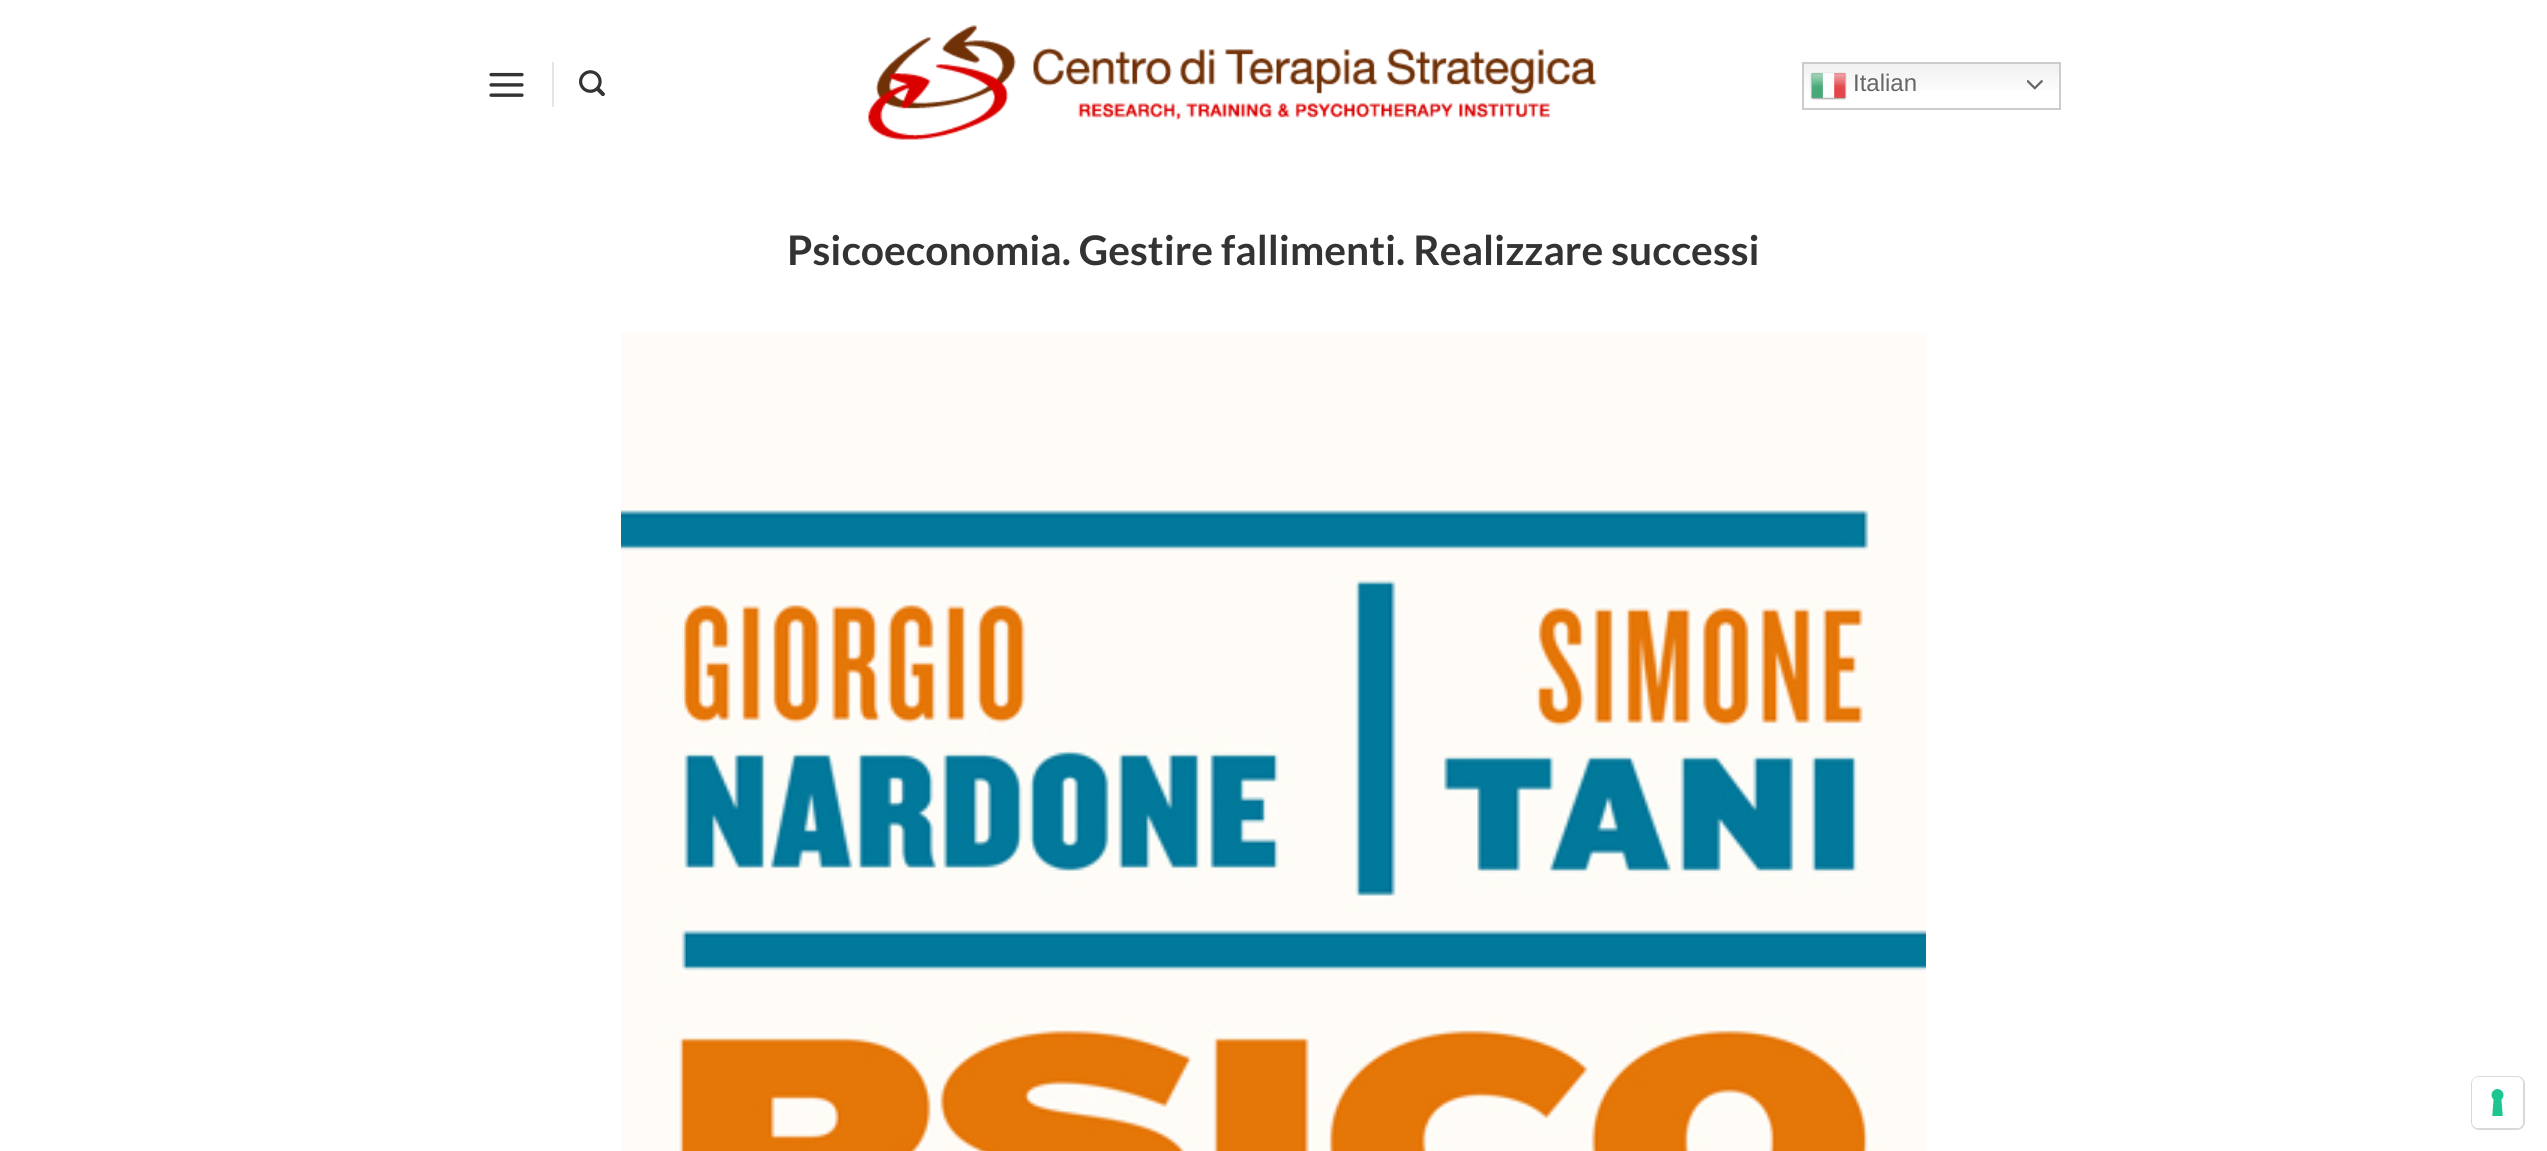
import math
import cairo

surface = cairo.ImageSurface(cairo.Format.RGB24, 2547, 1151)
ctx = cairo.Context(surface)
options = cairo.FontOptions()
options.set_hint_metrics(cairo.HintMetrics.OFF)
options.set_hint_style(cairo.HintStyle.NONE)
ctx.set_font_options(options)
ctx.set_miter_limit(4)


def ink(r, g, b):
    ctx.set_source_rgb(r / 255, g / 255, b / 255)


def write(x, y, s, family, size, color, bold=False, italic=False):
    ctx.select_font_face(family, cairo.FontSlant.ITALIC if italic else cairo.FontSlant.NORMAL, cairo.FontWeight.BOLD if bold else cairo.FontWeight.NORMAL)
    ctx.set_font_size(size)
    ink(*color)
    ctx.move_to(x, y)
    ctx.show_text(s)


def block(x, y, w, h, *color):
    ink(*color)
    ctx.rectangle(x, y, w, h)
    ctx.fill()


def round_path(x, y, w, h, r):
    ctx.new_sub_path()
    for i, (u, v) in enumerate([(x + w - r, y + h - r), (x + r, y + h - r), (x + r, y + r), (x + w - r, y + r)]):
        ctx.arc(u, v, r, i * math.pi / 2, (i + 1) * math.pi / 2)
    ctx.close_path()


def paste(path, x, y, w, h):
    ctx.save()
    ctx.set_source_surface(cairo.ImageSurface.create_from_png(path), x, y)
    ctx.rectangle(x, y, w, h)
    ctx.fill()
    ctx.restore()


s1 = dict(family="Liberation Sans", size=24, color=(102, 102, 102))
s2 = dict(family="Lato", size=40.8, color=(51, 51, 51), bold=True)

ink(255, 255, 255)
ctx.paint()
paste("pic1.png", 489, 72, 35, 25)
block(552, 62, 2, 45, 230, 230, 230)
paste("pic2.png", 579, 70, 26, 27)
paste("pic3.png", 868, 25, 729, 115)
gradient = cairo.LinearGradient(1931, 61, 1931, 110)
gradient.add_color_stop_rgba(0, 0.937, 0.937, 0.937, 1)
gradient.add_color_stop_rgba(0.7, 1, 1, 1, 1)
ctx.set_source(gradient)
ctx.rectangle(1804, 64, 255, 26)
ctx.fill()
ctx.rectangle(1803, 63, 257, 46)
ink(204, 204, 204)
ctx.stroke()
paste("pic4.png", 1810, 72, 37, 28)
write(1853, 91, "Italian", **s1)
paste("pic5.png", 2027, 80, 16, 10)
write(787, 265, "Psicoeconomia. Gestire fallimenti. Realizzare successi", **s2)
paste("pic6.png", 621, 333, 1305, 818)
round_path(2472, 1077, 52, 52, 7)
ink(217, 217, 217)
ctx.stroke()
ink(255, 255, 255)
round_path(2472, 1077, 51, 51, 6)
ctx.fill()
paste("pic7.png", 2491, 1089, 13, 27)
surface.write_to_png("screenshot.png")
